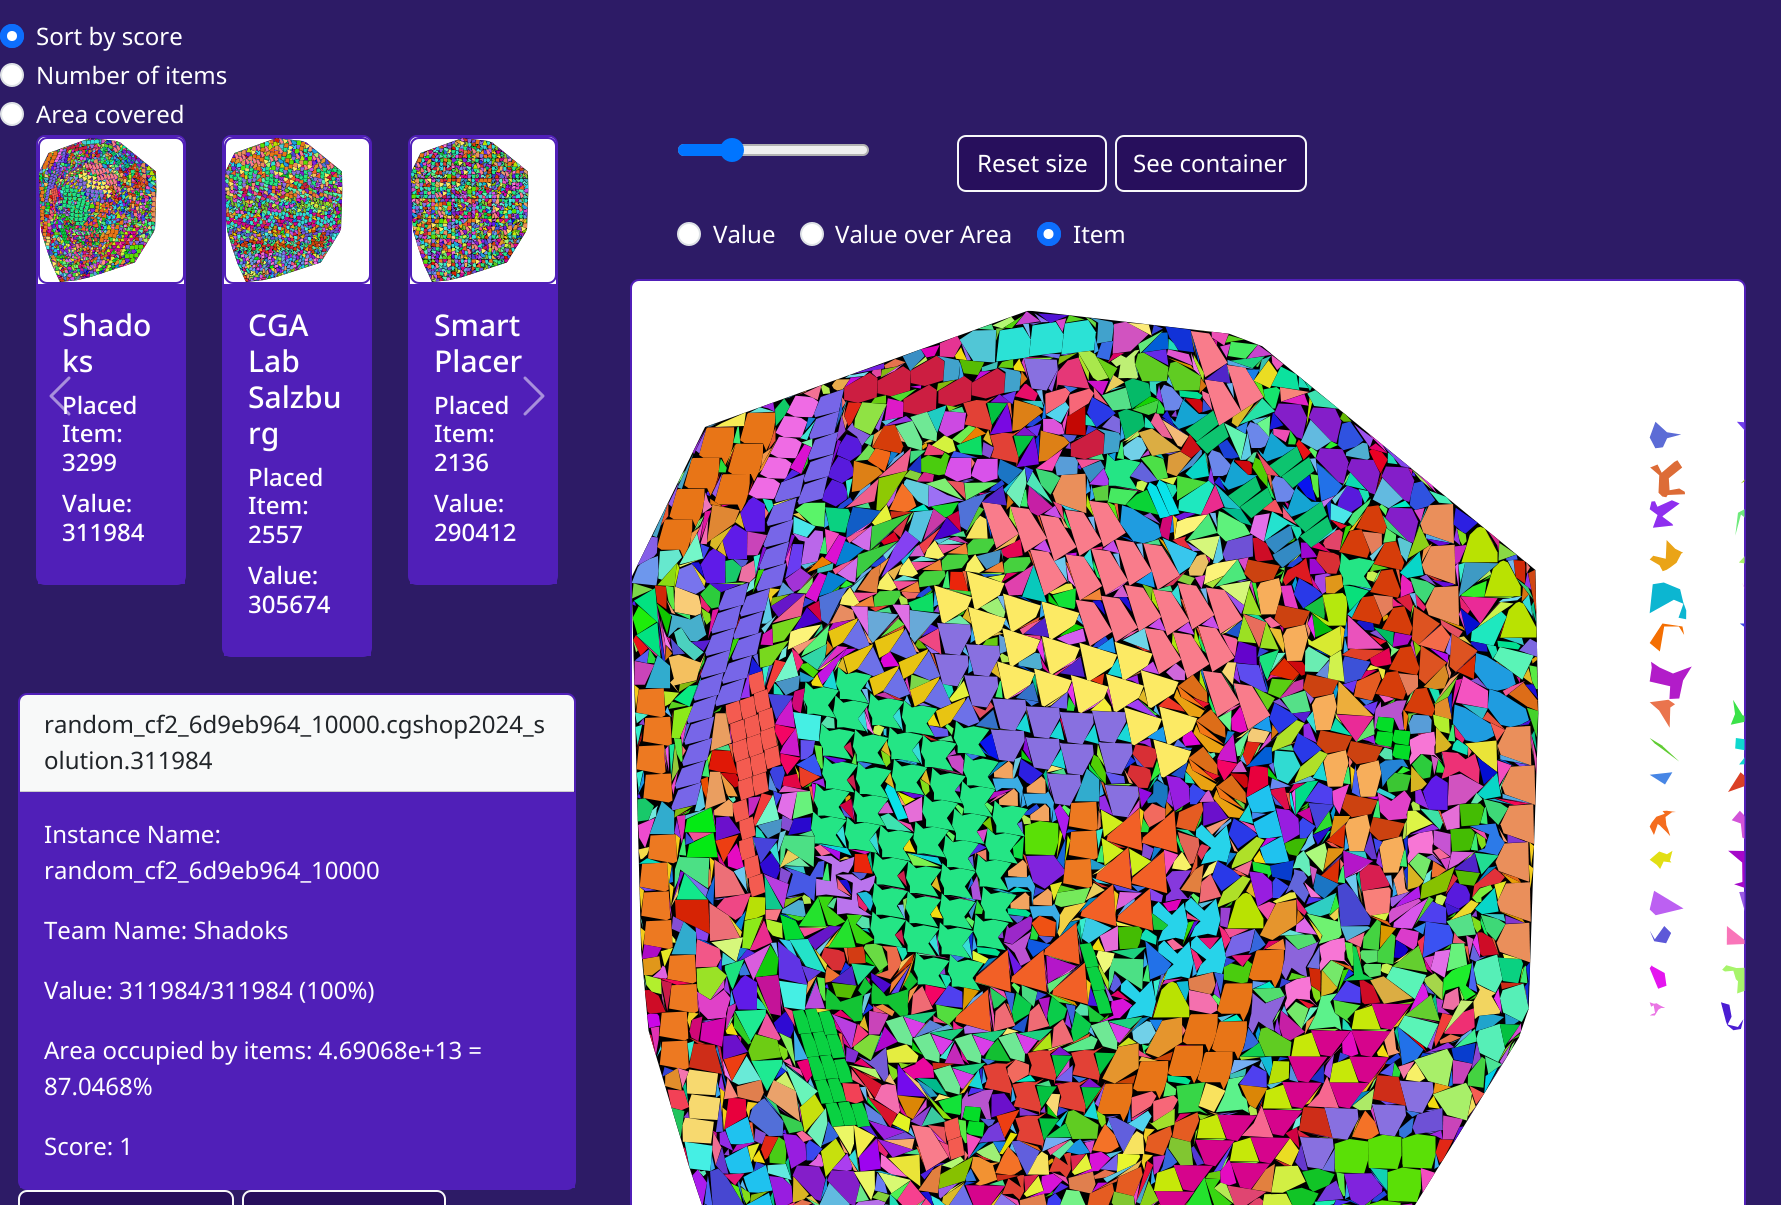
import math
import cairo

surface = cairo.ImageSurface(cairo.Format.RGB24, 1781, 1205)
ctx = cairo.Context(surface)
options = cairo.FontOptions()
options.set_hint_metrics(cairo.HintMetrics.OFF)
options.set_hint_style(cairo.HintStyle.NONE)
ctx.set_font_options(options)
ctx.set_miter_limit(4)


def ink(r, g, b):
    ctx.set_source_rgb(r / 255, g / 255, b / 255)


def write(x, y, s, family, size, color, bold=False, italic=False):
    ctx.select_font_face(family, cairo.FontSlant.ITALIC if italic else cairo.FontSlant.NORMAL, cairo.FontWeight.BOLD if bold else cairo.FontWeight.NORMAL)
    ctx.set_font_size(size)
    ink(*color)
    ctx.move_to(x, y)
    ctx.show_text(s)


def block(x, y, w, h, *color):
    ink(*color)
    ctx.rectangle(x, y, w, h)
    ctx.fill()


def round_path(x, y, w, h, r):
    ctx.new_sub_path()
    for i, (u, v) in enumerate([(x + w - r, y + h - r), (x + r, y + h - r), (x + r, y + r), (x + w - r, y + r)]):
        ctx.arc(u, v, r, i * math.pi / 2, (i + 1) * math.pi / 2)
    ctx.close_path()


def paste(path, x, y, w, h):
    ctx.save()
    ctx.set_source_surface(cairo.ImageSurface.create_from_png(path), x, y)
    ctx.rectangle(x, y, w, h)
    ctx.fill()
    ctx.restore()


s1 = dict(family="Noto Sans", size=24, color=(255, 255, 255))
s2 = dict(family="Noto Sans Medium", size=24, color=(255, 255, 255))
s3 = dict(family="Noto Sans Medium", size=30, color=(255, 255, 255))
s4 = dict(family="Noto Sans", size=24, color=(33, 37, 41))

ink(45, 27, 102)
ctx.paint()
ink(13, 110, 253)
ctx.arc(12, 36, 12, 0, 2 * math.pi)
ctx.fill()
ink(255, 255, 255)
ctx.arc(12, 36, 5, 0, 2 * math.pi)
ctx.fill()
ctx.arc(12, 36, 11, 0, 2 * math.pi)
ink(13, 110, 253)
ctx.stroke()
write(36, 45, "Sort by score", **s1)
ctx.new_path()
ctx.arc(12, 75, 11, 0, 2 * math.pi)
ctx.fill_preserve()
ink(222, 226, 230)
ctx.stroke()
write(36, 84, "Number of items", **s1)
ctx.new_path()
ctx.arc(12, 114, 11, 0, 2 * math.pi)
ctx.fill_preserve()
ink(222, 226, 230)
ctx.stroke()
write(36, 123, "Area covered", **s1)
ink(239, 239, 239)
round_path(679, 145, 189, 10, 5)
ctx.fill_preserve()
ink(178, 178, 178)
ctx.stroke()
ink(0, 117, 255)
ctx.new_path()
ctx.move_to(684, 144)
ctx.line_to(732, 144)
ctx.line_to(732, 156)
ctx.line_to(684, 156)
ctx.curve_to(680.5, 156, 678, 153.5, 678, 150)
ctx.curve_to(678, 146.5, 680.5, 144, 684, 144)
ctx.close_path()
ctx.fill()
ctx.arc(732, 150, 12, 0, 2 * math.pi)
ctx.fill()
ink(39, 15, 92)
round_path(958, 136, 148, 55, 8)
ctx.fill_preserve()
ink(248, 249, 250)
ctx.stroke()
write(977, 172, "Reset size", **s1)
ink(39, 15, 92)
round_path(1116, 136, 190, 55, 8)
ctx.fill_preserve()
ink(248, 249, 250)
ctx.stroke()
write(1133, 172, "See container", **s1)
ctx.new_path()
ctx.arc(689, 234, 11, 0, 2 * math.pi)
ctx.fill_preserve()
ink(222, 226, 230)
ctx.stroke()
write(713, 243, "Value", **s1)
ctx.new_path()
ctx.arc(812, 234, 11, 0, 2 * math.pi)
ctx.fill_preserve()
ink(222, 226, 230)
ctx.stroke()
write(835, 243, "Value over Area", **s1)
ink(13, 110, 253)
ctx.new_path()
ctx.arc(1049, 234, 12, 0, 2 * math.pi)
ctx.fill()
ink(255, 255, 255)
ctx.arc(1048.5, 234, 5, 0, 2 * math.pi)
ctx.fill()
ctx.arc(1049, 234, 11, 0, 2 * math.pi)
ink(13, 110, 253)
ctx.stroke()
write(1073, 243, "Item", **s1)
round_path(631, 280, 1114, 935, 8)
ctx.fill_preserve()
ink(80, 31, 184)
ctx.stroke()
paste("pic1.png", 631, 310, 1114, 895)
ink(255, 255, 255)
round_path(37, 136, 148, 448, 8)
ctx.fill_preserve()
ink(80, 31, 184)
ctx.stroke()
block(38, 284, 147, 300, 80, 31, 184)
write(62, 414, "Placed", **s2)
paste("pic2.png", 49, 376, 22, 40)
round_path(39, 138, 145, 145, 8)
ctx.fill_preserve()
ink(80, 31, 184)
ctx.stroke()
paste("pic3.png", 39, 138, 118, 144)
write(62, 336, "Shado", **s3)
write(62, 372, "ks", **s3)
write(62, 442, "Item:", **s2)
write(62, 471, "3299", **s2)
write(62, 512, "Value:", **s2)
write(62, 541, "311984", **s2)
round_path(223, 136, 148, 520, 8)
ctx.fill_preserve()
ink(80, 31, 184)
ctx.stroke()
ink(255, 255, 255)
round_path(225, 138, 145, 145, 8)
ctx.fill_preserve()
ink(80, 31, 184)
ctx.stroke()
paste("pic4.png", 225, 138, 118, 144)
block(224, 284, 147, 372, 80, 31, 184)
write(248, 336, "CGA", **s3)
write(248, 372, "Lab", **s3)
write(248, 408, "Salzbu", **s3)
write(248, 444, "rg", **s3)
write(248, 486, "Placed", **s2)
write(248, 514, "Item:", **s2)
write(248, 543, "2557", **s2)
write(248, 584, "Value:", **s2)
write(248, 613, "305674", **s2)
round_path(409, 136, 148, 448, 8)
ctx.fill_preserve()
ink(80, 31, 184)
ctx.stroke()
ink(255, 255, 255)
round_path(411, 138, 145, 145, 8)
ctx.fill_preserve()
ink(80, 31, 184)
ctx.stroke()
paste("pic5.png", 411, 138, 118, 144)
block(410, 284, 147, 300, 80, 31, 184)
write(434, 336, "Smart", **s3)
write(434, 372, "Placer", **s3)
write(434, 414, "Placed", **s2)
write(434, 442, "Item:", **s2)
write(434, 471, "2136", **s2)
write(434, 512, "Value:", **s2)
write(434, 541, "290412", **s2)
paste("pic6.png", 523, 376, 22, 40)
round_path(19, 694, 556, 495, 8)
ctx.fill_preserve()
ink(80, 31, 184)
ctx.stroke()
ctx.set_source_rgba(0.129, 0.145, 0.161, 0.03)
ctx.rectangle(20, 695, 555, 97)
ctx.fill()
ctx.set_source_rgba(0, 0, 0, 0.18)
ctx.rectangle(20, 791, 555, 1)
ctx.fill()
write(44, 733, "random_cf2_6d9eb964_10000.cgshop2024_s", **s4)
write(44, 769, "olution.311984", **s4)
block(20, 792, 555, 396, 80, 31, 184)
write(44, 843, "Instance Name:", **s1)
write(44, 879, "random_cf2_6d9eb964_10000", **s1)
write(44, 939, "Team Name: Shadoks", **s1)
write(44, 999, "Value: 311984/311984 (100%)", **s1)
write(44, 1059, "Area occupied by items: 4.69068e+13 =", **s1)
write(44, 1095, "87.0468%", **s1)
write(44, 1155, "Score: 1", **s1)
ink(39, 15, 92)
round_path(19, 1191, 214, 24, 8)
ctx.fill_preserve()
ink(248, 249, 250)
ctx.stroke()
ink(39, 15, 92)
round_path(243, 1191, 202, 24, 8)
ctx.fill_preserve()
ink(248, 249, 250)
ctx.stroke()
surface.write_to_png("screenshot.png")
